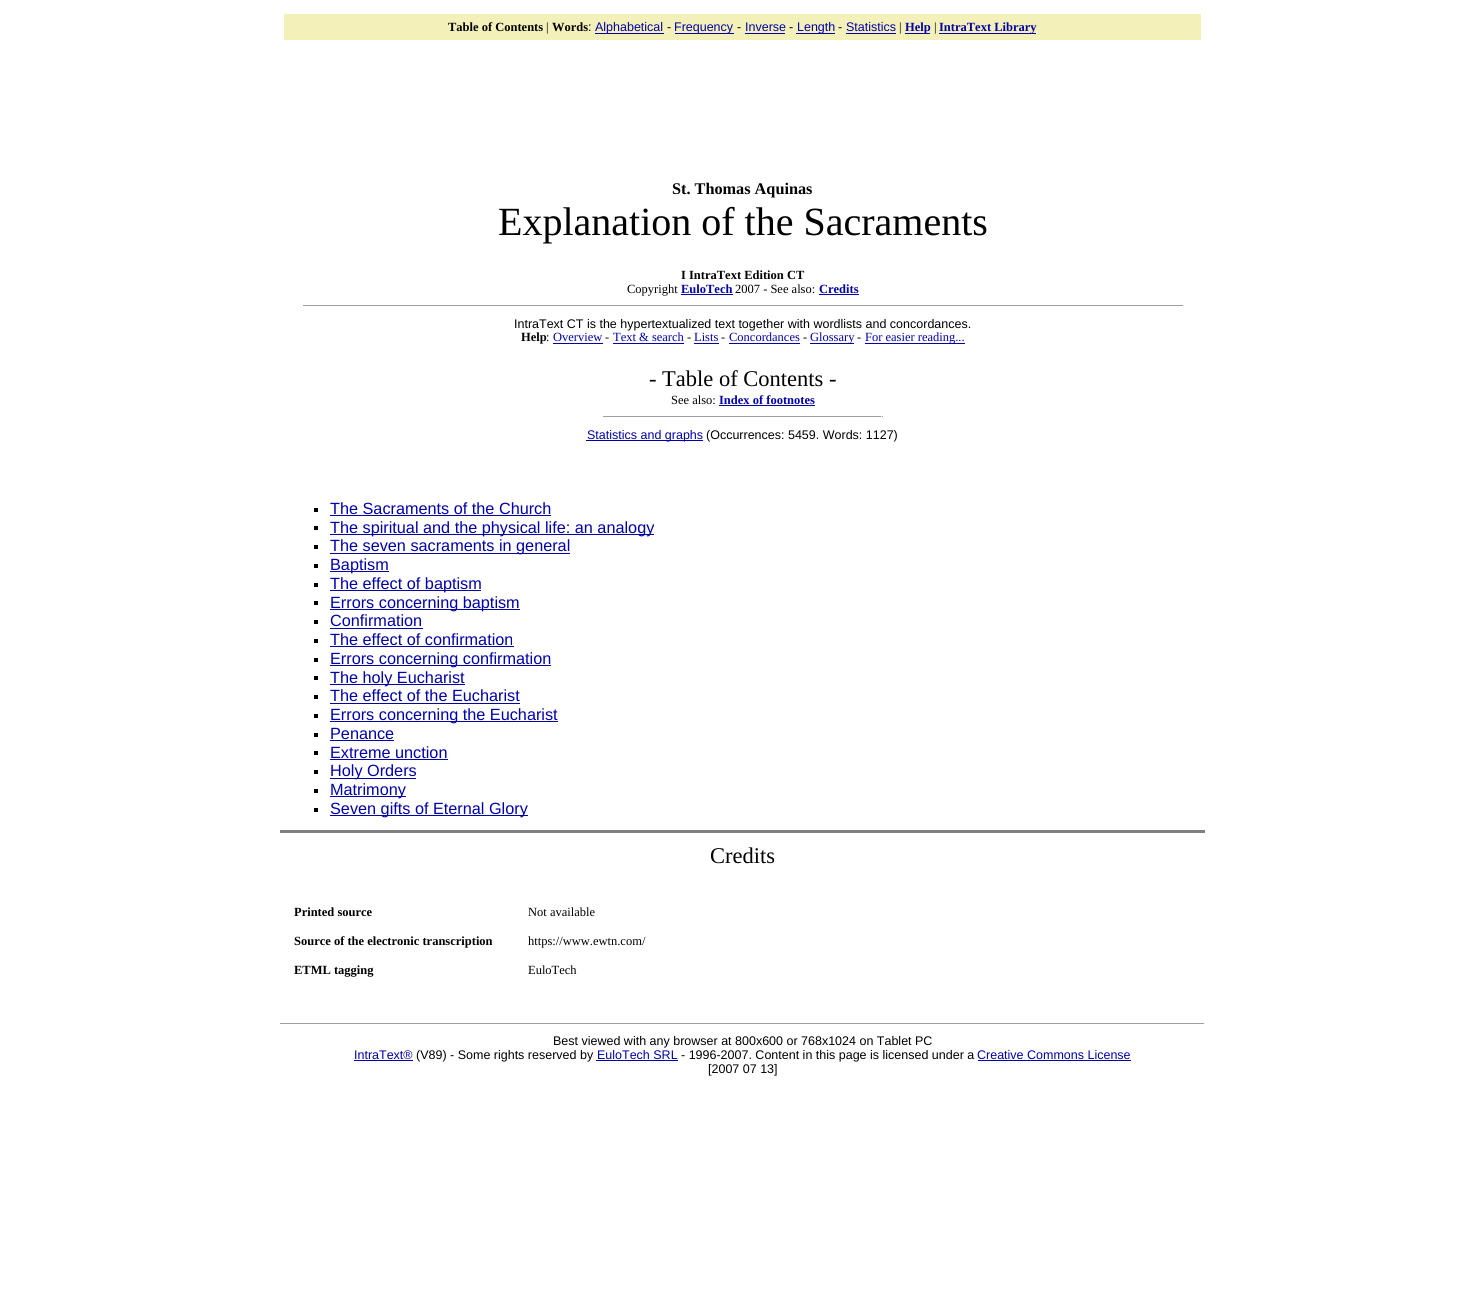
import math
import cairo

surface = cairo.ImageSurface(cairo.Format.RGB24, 1484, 1313)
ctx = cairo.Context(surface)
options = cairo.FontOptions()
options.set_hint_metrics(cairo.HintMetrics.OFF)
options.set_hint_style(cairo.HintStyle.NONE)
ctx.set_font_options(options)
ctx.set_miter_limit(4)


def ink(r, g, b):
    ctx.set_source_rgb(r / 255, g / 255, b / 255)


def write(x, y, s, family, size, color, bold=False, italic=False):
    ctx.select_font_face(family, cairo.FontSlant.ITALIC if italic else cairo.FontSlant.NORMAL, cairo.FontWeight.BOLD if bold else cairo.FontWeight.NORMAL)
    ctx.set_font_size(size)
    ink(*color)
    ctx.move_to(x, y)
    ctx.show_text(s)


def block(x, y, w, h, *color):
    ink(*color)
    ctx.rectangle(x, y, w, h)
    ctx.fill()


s1 = dict(family="Liberation Serif", size=12.5, color=(0, 0, 0), bold=True)
s2 = dict(family="Liberation Serif", size=12.5, color=(0, 0, 0))
s3 = dict(family="Liberation Sans", size=12.5, color=(0, 0, 0))
s4 = dict(family="Liberation Sans", size=12.5, color=(0, 0, 170))
s5 = dict(family="Liberation Serif", size=12.5, color=(0, 0, 170), bold=True)
s6 = dict(family="Liberation Serif", size=16.25, color=(0, 0, 0), bold=True)
s7 = dict(family="Liberation Serif", size=40, color=(0, 0, 0))
s8 = dict(family="Liberation Serif", size=12.5, color=(0, 0, 170))
s9 = dict(family="Liberation Serif", size=22.5, color=(0, 0, 0))
s10 = dict(family="Liberation Sans", size=16.25, color=(0, 0, 170))

ink(255, 255, 255)
ctx.paint()
block(284, 14, 917, 26, 243, 240, 185)
write(448, 31, "Table of Contents", **s1)
write(546, 31, "|", **s2)
write(552, 31, "Words", **s1)
write(588, 31, ":", **s3)
block(595, 33, 69, 1, 0, 0, 170)
write(595, 31, "Alphabetical", **s4)
write(667, 31, "-", **s3)
block(675, 33, 59, 1, 0, 0, 170)
write(674, 31, "Frequency", **s4)
write(737, 31, "-", **s3)
write(745, 31, "Inverse", **s4)
block(745, 33, 40, 1, 0, 0, 170)
write(789, 31, "-", **s3)
block(796, 33, 39, 1, 0, 0, 170)
write(797, 31, "Length", **s4)
write(838, 31, "-", **s3)
write(846, 31, "Statistics", **s4)
block(846, 33, 50, 1, 0, 0, 170)
write(899, 31, "|", **s2)
block(905, 33, 25, 1, 0, 0, 170)
write(905, 31, "Help", **s5)
write(934, 31, "|", **s2)
block(939, 33, 97, 1, 0, 0, 170)
write(939, 31, "IntraText Library", **s5)
write(672, 194, "St. Thomas Aquinas", **s6)
write(498, 235, "Explanation of the Sacraments", **s7)
write(681, 279, "I IntraText Edition CT", **s1)
write(627, 293, "Copyright", **s2)
write(681, 293, "EuloTech", **s5)
block(681, 294, 52, 1, 0, 0, 170)
write(735, 293, "2007 - See also:", **s2)
write(819, 293, "Credits", **s5)
block(819, 294, 40, 1, 0, 0, 170)
block(303, 305, 881, 1, 159, 159, 159)
block(1183, 305, 1, 1, 238, 238, 238)
write(514, 328, "IntraText CT is the hypertextualized text together with wordlists and concordances.", **s3)
write(521, 341, "Help", **s1)
write(546, 341, ":", **s2)
write(553, 341, "Overview", **s8)
block(553, 343, 50, 1, 0, 0, 170)
write(605, 341, "-", **s2)
write(613, 341, "Text & search", **s8)
block(613, 343, 71, 1, 0, 0, 170)
write(687, 341, "-", **s2)
write(694, 341, "Lists", **s8)
block(694, 343, 25, 1, 0, 0, 170)
write(721, 341, "-", **s2)
write(729, 341, "Concordances", **s8)
block(729, 343, 71, 1, 0, 0, 170)
write(803, 341, "-", **s2)
block(810, 343, 44, 1, 0, 0, 170)
write(810, 341, "Glossary", **s8)
write(857, 341, "-", **s2)
block(865, 343, 100, 1, 0, 0, 170)
write(865, 341, "For easier reading...", **s8)
write(649, 386, "- Table of Contents -", **s9)
write(671, 404, "See also:", **s2)
write(719, 404, "Index of footnotes", **s5)
block(719, 405, 96, 1, 0, 0, 170)
block(603, 416, 280, 1, 159, 159, 159)
block(881, 416, 1, 1, 238, 238, 238)
block(586, 440, 117, 1, 0, 0, 170)
write(587, 439, "Statistics and graphs", **s4)
write(706, 439, "(Occurrences: 5459. Words: 1127)", **s3)
block(314, 508, 4, 4, 0, 0, 0)
write(330, 514, "The Sacraments of the Church", **s10)
block(330, 515, 221, 1, 0, 0, 170)
block(314, 526, 4, 4, 0, 0, 0)
block(330, 534, 324, 1, 0, 0, 170)
write(330, 533, "The spiritual and the physical life: an analogy", **s10)
block(314, 545, 4, 4, 0, 0, 0)
block(330, 553, 240, 1, 0, 0, 170)
write(330, 551, "The seven sacraments in general", **s10)
block(314, 564, 4, 4, 0, 0, 0)
block(330, 571, 59, 1, 0, 0, 170)
write(330, 570, "Baptism", **s10)
block(314, 583, 4, 4, 0, 0, 0)
block(330, 590, 151, 1, 0, 0, 170)
write(330, 589, "The effect of baptism", **s10)
block(314, 601, 4, 4, 0, 0, 0)
block(330, 609, 190, 1, 0, 0, 170)
write(330, 608, "Errors concerning baptism", **s10)
block(314, 620, 4, 4, 0, 0, 0)
write(330, 626, "Confirmation", **s10)
block(330, 628, 93, 1, 0, 0, 170)
block(314, 639, 4, 4, 0, 0, 0)
write(330, 645, "The effect of confirmation", **s10)
block(330, 646, 184, 1, 0, 0, 170)
block(314, 658, 4, 4, 0, 0, 0)
block(330, 665, 221, 1, 0, 0, 170)
write(330, 664, "Errors concerning confirmation", **s10)
block(314, 676, 4, 4, 0, 0, 0)
block(330, 684, 135, 1, 0, 0, 170)
write(330, 683, "The holy Eucharist", **s10)
block(314, 695, 4, 4, 0, 0, 0)
write(330, 701, "The effect of the Eucharist", **s10)
block(330, 703, 190, 1, 0, 0, 170)
block(314, 714, 4, 4, 0, 0, 0)
block(330, 721, 228, 1, 0, 0, 170)
write(330, 720, "Errors concerning the Eucharist", **s10)
block(314, 733, 4, 4, 0, 0, 0)
write(330, 739, "Penance", **s10)
block(330, 740, 64, 1, 0, 0, 170)
block(314, 751, 4, 4, 0, 0, 0)
write(330, 758, "Extreme unction", **s10)
block(330, 759, 118, 1, 0, 0, 170)
block(314, 770, 4, 4, 0, 0, 0)
block(330, 778, 86, 1, 0, 0, 170)
write(330, 776, "Holy Orders", **s10)
block(314, 789, 4, 4, 0, 0, 0)
block(330, 796, 76, 1, 0, 0, 170)
write(330, 795, "Matrimony", **s10)
block(314, 808, 4, 4, 0, 0, 0)
block(330, 815, 198, 1, 0, 0, 170)
write(330, 814, "Seven gifts of Eternal Glory", **s10)
block(280, 830, 925, 3, 128, 128, 128)
write(710, 863, "Credits", **s9)
write(294, 916, "Printed source", **s1)
write(528, 916, "Not available", **s2)
write(294, 945, "Source of the electronic transcription", **s1)
write(528, 945, "https://www.ewtn.com/", **s2)
write(294, 974, "ETML tagging", **s1)
write(528, 974, "EuloTech", **s2)
block(280, 1023, 925, 1, 159, 159, 159)
block(1204, 1023, 1, 1, 238, 238, 238)
write(553, 1045, "Best viewed with any browser at 800x600 or 768x1024 on Tablet PC", **s3)
write(354, 1059, "IntraText®", **s4)
block(354, 1060, 59, 1, 0, 0, 170)
write(416, 1059, "(V89) - Some rights reserved by", **s3)
block(596, 1060, 82, 1, 0, 0, 170)
write(597, 1059, "EuloTech SRL", **s4)
write(681, 1059, "- 1996-2007. Content in this page is licensed under a", **s3)
write(977, 1059, "Creative Commons License", **s4)
block(978, 1060, 153, 1, 0, 0, 170)
write(708, 1073, "[2007 07 13]", **s3)
surface.write_to_png("screenshot.png")
